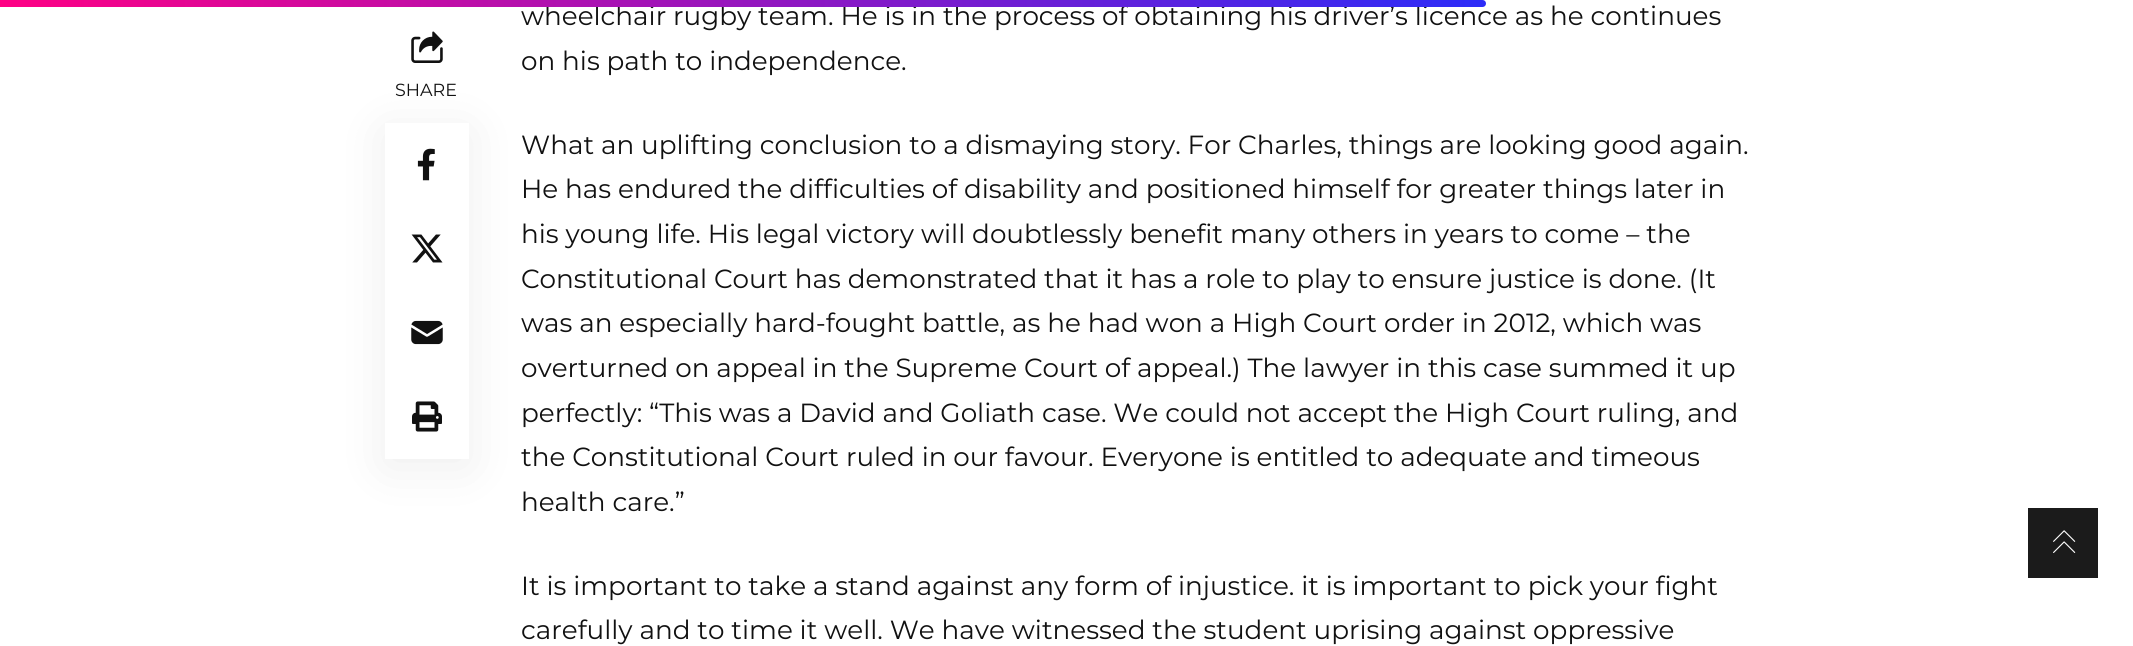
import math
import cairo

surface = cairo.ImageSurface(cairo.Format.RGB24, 2133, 646)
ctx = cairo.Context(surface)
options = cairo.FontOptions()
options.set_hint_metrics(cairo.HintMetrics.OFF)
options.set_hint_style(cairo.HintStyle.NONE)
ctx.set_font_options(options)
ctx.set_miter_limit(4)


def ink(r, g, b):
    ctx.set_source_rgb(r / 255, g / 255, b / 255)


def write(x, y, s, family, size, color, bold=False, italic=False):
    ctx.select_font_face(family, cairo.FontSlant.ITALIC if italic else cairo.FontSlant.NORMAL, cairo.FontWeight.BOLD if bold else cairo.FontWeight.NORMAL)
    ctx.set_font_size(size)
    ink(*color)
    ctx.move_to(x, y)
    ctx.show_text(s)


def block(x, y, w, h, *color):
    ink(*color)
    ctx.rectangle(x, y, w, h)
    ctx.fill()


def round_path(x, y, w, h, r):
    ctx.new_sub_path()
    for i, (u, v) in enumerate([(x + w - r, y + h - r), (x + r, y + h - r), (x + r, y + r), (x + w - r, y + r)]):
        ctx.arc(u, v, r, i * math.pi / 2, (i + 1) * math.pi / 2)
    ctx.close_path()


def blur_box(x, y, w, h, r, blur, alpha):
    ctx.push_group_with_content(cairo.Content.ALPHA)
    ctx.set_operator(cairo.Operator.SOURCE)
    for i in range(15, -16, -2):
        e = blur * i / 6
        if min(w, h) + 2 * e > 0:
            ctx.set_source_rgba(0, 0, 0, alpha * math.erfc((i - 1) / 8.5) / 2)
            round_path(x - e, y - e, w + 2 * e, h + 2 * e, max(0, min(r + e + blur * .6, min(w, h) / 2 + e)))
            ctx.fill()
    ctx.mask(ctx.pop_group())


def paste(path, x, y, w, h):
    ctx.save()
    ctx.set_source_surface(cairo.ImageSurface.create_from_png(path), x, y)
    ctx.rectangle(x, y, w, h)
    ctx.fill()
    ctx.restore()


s1 = dict(family="Montserrat", size=26.25, color=(17, 17, 17))
s2 = dict(family="Montserrat", size=17.5, color=(17, 17, 17))

ink(255, 255, 255)
ctx.paint()
write(521, 25, "wheelchair rugby team. He is in the process of obtaining his driver’s licence as he continues", **s1)
gradient = cairo.LinearGradient(0, 3.5, 1486, 3.5)
gradient.add_color_stop_rgba(0, 1, 0, 0.518, 1)
gradient.add_color_stop_rgba(1, 0.173, 0.173, 0.973, 1)
ctx.set_source(gradient)
ctx.new_path()
ctx.move_to(0, 0)
ctx.line_to(1482.5, 0)
ctx.curve_to(1484.5, 0, 1486, 1.5, 1486, 3.5)
ctx.curve_to(1486, 5.5, 1484.5, 7, 1482.5, 7)
ctx.line_to(0, 7)
ctx.close_path()
ctx.fill()
paste("pic5.png", 411, 31, 32, 32)
ink(0, 0, 0)
blur_box(385, 131, 84, 336, 0, 26, 0.07)
block(385, 123, 84, 336, 255, 255, 255)
paste("pic1.png", 417, 148, 18, 33)
paste("pic2.png", 411, 234, 32, 29)
paste("pic3.png", 411, 320, 32, 25)
paste("pic4.png", 412, 401, 30, 31)
write(395, 96, "SHARE", **s2)
write(521, 70, "on his path to independence.", **s1)
write(521, 154, "What an uplifting conclusion to a dismaying story. For Charles, things are looking good again.", **s1)
write(521, 198, "He has endured the difficulties of disability and positioned himself for greater things later in", **s1)
write(521, 243, "his young life. His legal victory will doubtlessly benefit many others in years to come – the", **s1)
write(521, 288, "Constitutional Court has demonstrated that it has a role to play to ensure justice is done. (It", **s1)
write(521, 332, "was an especially hard-fought battle, as he had won a High Court order in 2012, which was", **s1)
write(521, 377, "overturned on appeal in the Supreme Court of appeal.) The lawyer in this case summed it up", **s1)
write(521, 422, "perfectly: “This was a David and Goliath case. We could not accept the High Court ruling, and", **s1)
write(521, 466, "the Constitutional Court ruled in our favour. Everyone is entitled to adequate and timeous", **s1)
write(521, 511, "health care.”", **s1)
write(521, 595, "It is important to take a stand against any form of injustice. it is important to pick your fight", **s1)
write(521, 639, "carefully and to time it well. We have witnessed the student uprising against oppressive", **s1)
block(2028, 508, 70, 70, 27, 27, 27)
paste("pic6.png", 2053, 530, 23, 23)
surface.write_to_png("screenshot.png")
